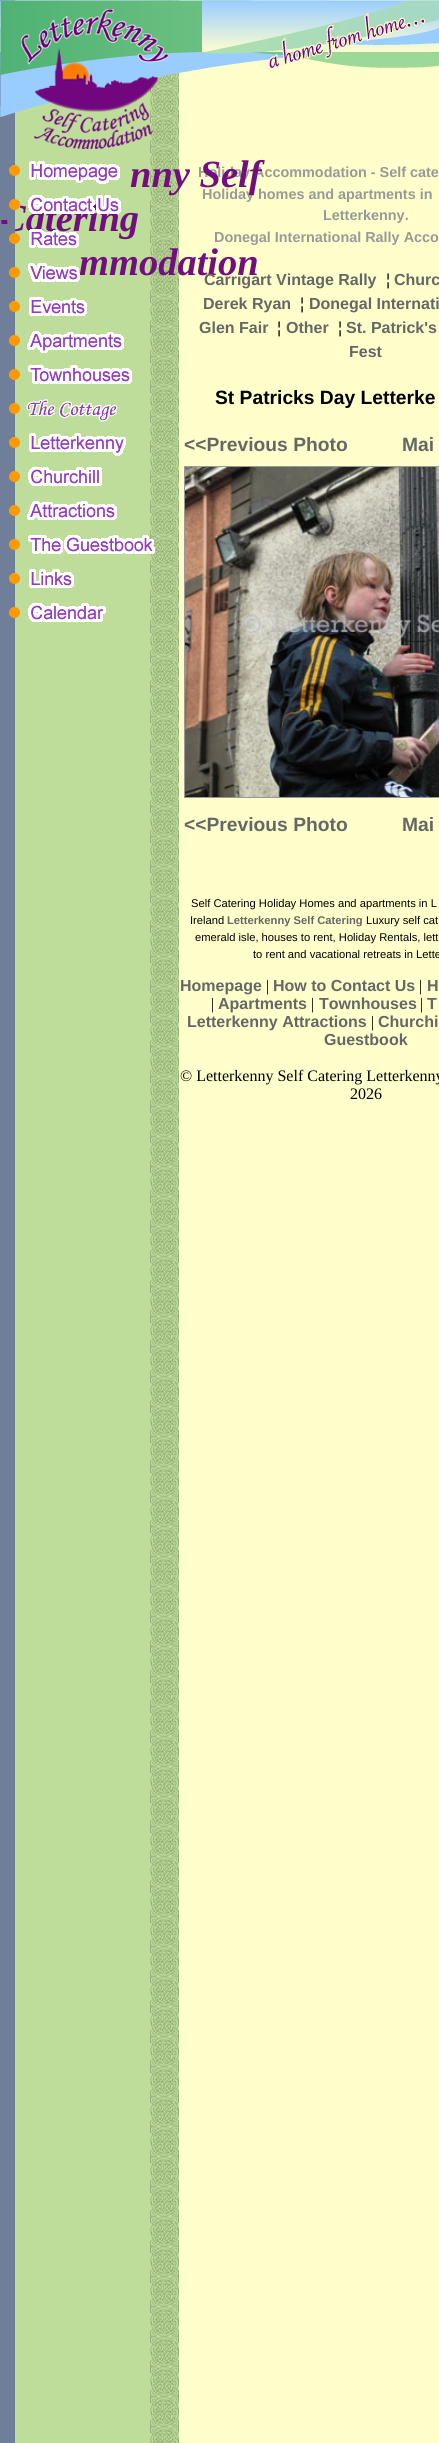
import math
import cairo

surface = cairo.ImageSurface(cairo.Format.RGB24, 439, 2443)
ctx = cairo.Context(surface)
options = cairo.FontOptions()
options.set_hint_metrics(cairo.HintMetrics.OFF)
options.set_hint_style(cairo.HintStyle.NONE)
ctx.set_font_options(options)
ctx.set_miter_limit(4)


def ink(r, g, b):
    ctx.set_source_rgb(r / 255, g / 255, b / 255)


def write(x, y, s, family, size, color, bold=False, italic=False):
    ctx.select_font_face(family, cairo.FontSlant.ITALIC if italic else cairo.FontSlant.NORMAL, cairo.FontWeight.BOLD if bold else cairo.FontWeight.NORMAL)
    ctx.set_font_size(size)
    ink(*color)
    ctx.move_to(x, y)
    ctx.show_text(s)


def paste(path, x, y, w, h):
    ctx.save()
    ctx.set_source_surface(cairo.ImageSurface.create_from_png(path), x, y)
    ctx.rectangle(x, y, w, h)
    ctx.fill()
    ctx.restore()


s1 = dict(family="Liberation Serif", size=38.5, color=(113, 15, 126), bold=True, italic=True)
s2 = dict(family="Liberation Sans", size=14.4, color=(153, 153, 153), bold=True)
s3 = dict(family="Liberation Sans", size=16, color=(102, 102, 102), bold=True)
s4 = dict(family="Liberation Sans", size=16, color=(0, 0, 0))
s5 = dict(family="Liberation Sans", size=19.25, color=(0, 0, 0), bold=True)
s6 = dict(family="Liberation Sans", size=19.25, color=(102, 102, 102), bold=True)
s7 = dict(family="Liberation Sans", size=11.2, color=(0, 0, 0))
s8 = dict(family="Liberation Sans", size=11.2, color=(102, 102, 102), bold=True)
s9 = dict(family="Liberation Serif", size=16, color=(0, 0, 0))

ink(255, 255, 204)
ctx.paint()
paste("pic1.png", 0, 0, 179, 2443)
paste("pic17.png", 0, 0, 439, 53)
paste("pic18.png", 0, 0, 439, 117)
paste("pic2.png", 21, 9, 147, 140)
paste("pic3.png", 0, 161, 120, 25)
write(0, 231, "Catering", **s1)
paste("pic4.png", 1, 195, 120, 25)
paste("pic5.png", 1, 224, 78, 30)
write(79, 275, "mmodation", **s1)
paste("pic6.png", 0, 258, 80, 24)
paste("pic7.png", 9, 297, 78, 19)
paste("pic8.png", 9, 331, 115, 22)
paste("pic9.png", 9, 365, 123, 19)
paste("pic10.png", 9, 399, 109, 23)
paste("pic11.png", 9, 433, 117, 23)
paste("pic12.png", 9, 467, 93, 19)
paste("pic13.png", 9, 501, 108, 19)
paste("pic14.png", 9, 535, 146, 19)
paste("pic15.png", 9, 569, 65, 19)
paste("pic16.png", 9, 603, 97, 19)
paste("pic19.png", 202, 0, 237, 69)
write(198, 177, "Holiday Accommodation - Self cate", **s2)
write(202, 199, "Holiday homes and apartments in", **s2)
write(130, 187, "nny Self", **s1)
write(323, 220, "Letterkenny.", **s2)
write(214, 242, "Donegal International Rally Acco", **s2)
write(204, 285, "Carrigart Vintage Rally", **s3)
write(386, 285, "¦", **s4)
write(394, 285, "Churc", **s3)
write(203, 309, "Derek Ryan", **s3)
write(300, 309, "¦", **s4)
write(309, 309, "Donegal Internati", **s3)
write(199, 333, "Glen Fair", **s3)
write(277, 333, "¦", **s4)
write(286, 333, "Other", **s3)
write(338, 333, "¦", **s4)
write(346, 333, "St. Patrick's", **s3)
write(349, 357, "Fest", **s3)
write(215, 404, "St Patricks Day Letterke", **s5)
write(184, 451, "<<Previous Photo", **s6)
write(402, 451, "Mai", **s6)
ctx.rectangle(184.5, 466.5, 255, 331)
ink(153, 153, 153)
ctx.set_line_width(1)
ctx.stroke()
paste("pic20.png", 185, 467, 254, 330)
write(184, 831, "<<Previous Photo", **s6)
write(402, 831, "Mai", **s6)
write(191, 907, "Self Catering Holiday Homes and apartments in L", **s7)
write(190, 924, "Ireland", **s7)
write(227, 924, "Letterkenny Self Catering", **s8)
write(366, 924, "Luxury self cat", **s7)
write(195, 941, "emerald isle, houses to rent, Holiday Rentals, lett", **s7)
write(253, 958, "to rent and vacational retreats in Lette", **s7)
write(180, 991, "Homepage", **s3)
write(266, 991, "|", **s9)
write(273, 991, "How to Contact Us", **s3)
write(419, 991, "|", **s9)
write(427, 991, "H", **s3)
write(211, 1009, "|", **s9)
write(218, 1009, "Apartments", **s3)
write(311, 1009, "|", **s9)
write(319, 1009, "Townhouses", **s3)
write(420, 1009, "|", **s9)
write(427, 1009, "T", **s3)
write(187, 1027, "Letterkenny Attractions", **s3)
write(371, 1027, "|", **s9)
write(378, 1027, "Churchi", **s3)
write(324, 1045, "Guestbook", **s3)
write(180, 1081, "© Letterkenny Self Catering Letterkenny", **s9)
write(350, 1099, "2026", **s9)
surface.write_to_png("screenshot.png")
